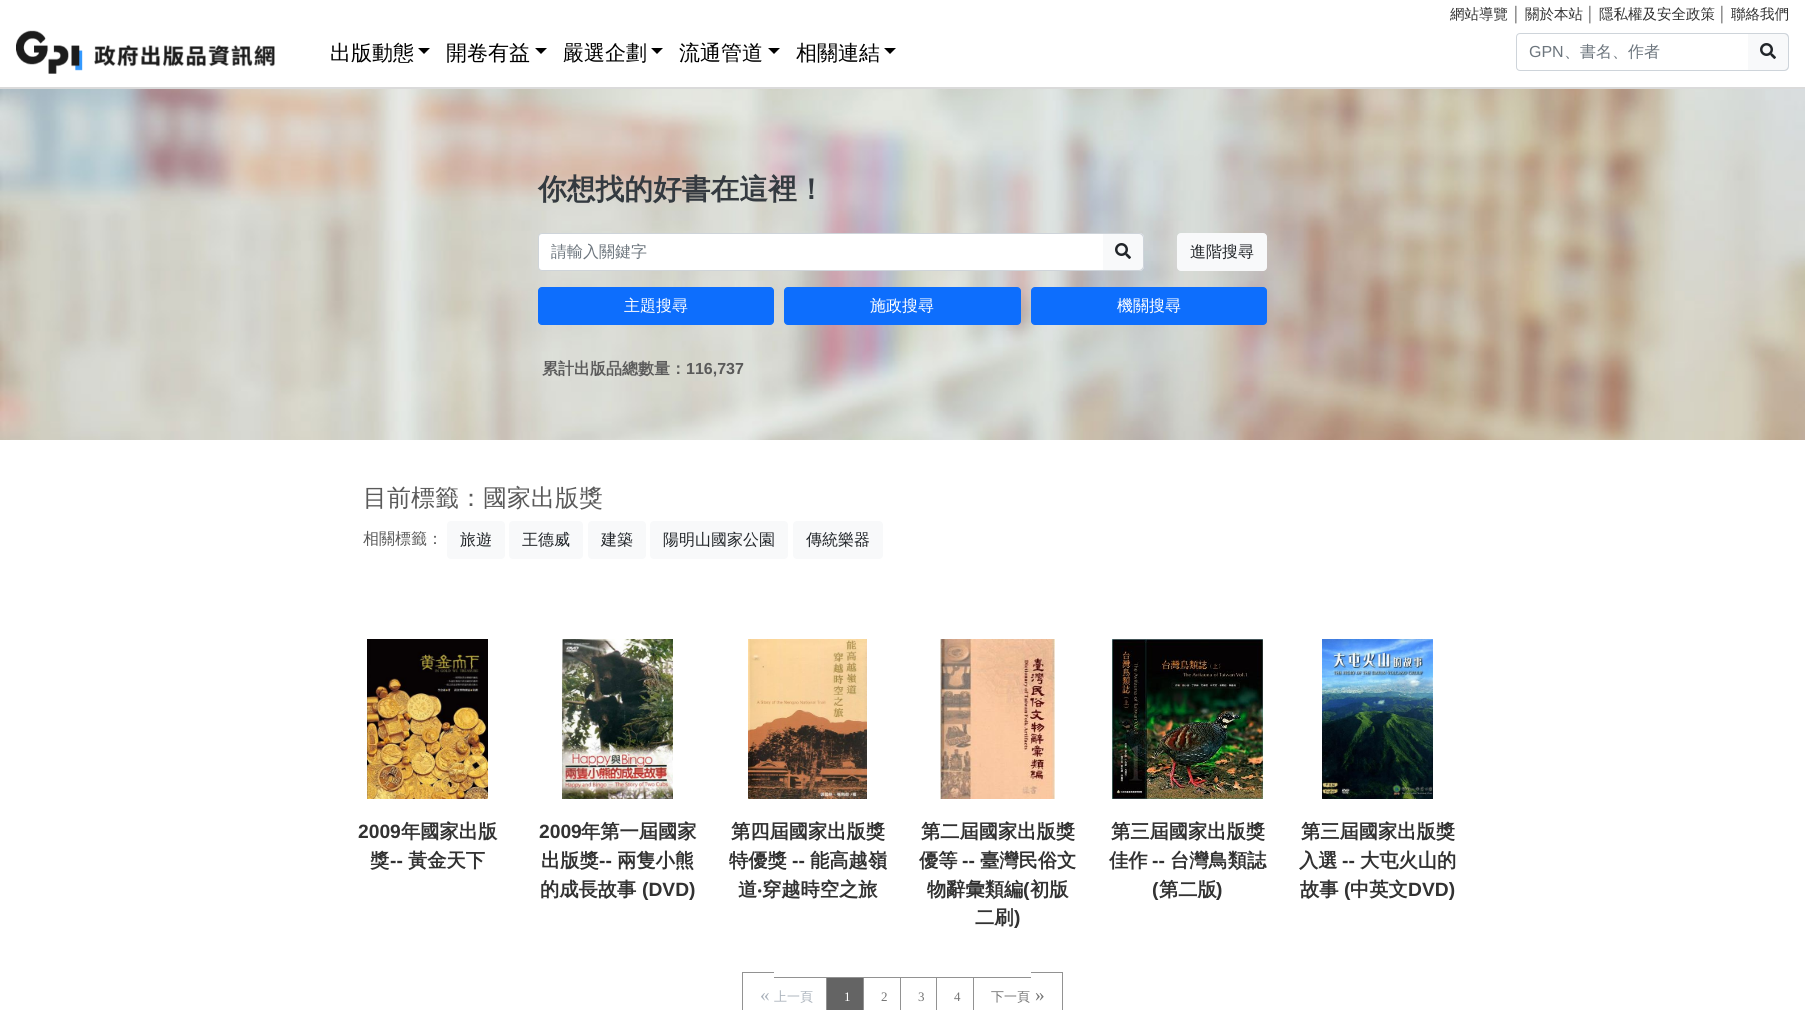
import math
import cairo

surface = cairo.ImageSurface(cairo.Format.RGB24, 1805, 1010)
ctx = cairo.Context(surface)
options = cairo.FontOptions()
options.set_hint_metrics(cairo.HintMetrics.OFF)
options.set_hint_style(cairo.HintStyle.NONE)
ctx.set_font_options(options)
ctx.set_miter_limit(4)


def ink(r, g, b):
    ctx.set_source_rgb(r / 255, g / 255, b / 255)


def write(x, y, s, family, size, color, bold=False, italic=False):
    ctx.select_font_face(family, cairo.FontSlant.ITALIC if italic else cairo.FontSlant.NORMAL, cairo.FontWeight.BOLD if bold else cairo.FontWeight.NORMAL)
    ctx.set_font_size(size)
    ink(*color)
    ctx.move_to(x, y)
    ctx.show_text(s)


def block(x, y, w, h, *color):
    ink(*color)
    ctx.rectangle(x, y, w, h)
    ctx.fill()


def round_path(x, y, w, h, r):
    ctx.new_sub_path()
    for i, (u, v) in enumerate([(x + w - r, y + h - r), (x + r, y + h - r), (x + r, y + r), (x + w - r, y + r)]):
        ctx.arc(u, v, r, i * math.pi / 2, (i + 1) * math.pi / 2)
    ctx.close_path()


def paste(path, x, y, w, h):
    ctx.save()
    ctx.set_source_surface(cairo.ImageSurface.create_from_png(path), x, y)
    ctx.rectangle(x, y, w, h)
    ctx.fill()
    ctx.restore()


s1 = dict(family="WenQuanYi Zen Hei Medium", size=14.5, color=(50, 50, 50))
s2 = dict(family="Liberation Sans", size=14.5, color=(90, 90, 90))
s3 = dict(family="WenQuanYi Zen Hei Medium", size=21, color=(0, 0, 0))
s4 = dict(family="Liberation Sans", size=16, color=(108, 117, 125))
s5 = dict(family="WenQuanYi Zen Hei Medium", size=16, color=(108, 117, 125))
s6 = dict(family="WenQuanYi Zen Hei", size=28.75, color=(52, 58, 64), bold=True)
s7 = dict(family="WenQuanYi Zen Hei Medium", size=16, color=(33, 37, 41))
s8 = dict(family="WenQuanYi Zen Hei Medium", size=16, color=(255, 255, 255))
s9 = dict(family="WenQuanYi Zen Hei", size=16, color=(90, 90, 90), bold=True)
s10 = dict(family="Liberation Sans", size=16, color=(90, 90, 90), bold=True)
s11 = dict(family="WenQuanYi Zen Hei Medium", size=24, color=(90, 90, 90))
s12 = dict(family="WenQuanYi Zen Hei Medium", size=16, color=(90, 90, 90))
s13 = dict(family="Liberation Sans", size=19.25, color=(50, 50, 50), bold=True)
s14 = dict(family="WenQuanYi Zen Hei", size=19.25, color=(50, 50, 50), bold=True)
s15 = dict(family="Noto Sans", size=19.25, color=(50, 50, 50), bold=True)
s16 = dict(family="Liberation Serif", size=19.25, color=(171, 179, 188))
s17 = dict(family="WenQuanYi Zen Hei Medium", size=13, color=(171, 179, 188))
s18 = dict(family="Liberation Serif", size=13, color=(255, 255, 255))
s19 = dict(family="Liberation Serif", size=13, color=(116, 116, 116))
s20 = dict(family="WenQuanYi Zen Hei Medium", size=13, color=(116, 116, 116))
s21 = dict(family="Liberation Serif", size=19.25, color=(116, 116, 116))

ink(255, 255, 255)
ctx.paint()
block(0, 87, 1805, 2, 218, 218, 218)
write(1450, 19, "網站導覽", **s1)
write(1512, 19, "│", **s2)
write(1525, 19, "關於本站", **s1)
write(1586, 19, "│", **s2)
write(1599, 19, "隱私權及安全政策", **s1)
write(1718, 19, "│", **s2)
write(1731, 19, "聯絡我們", **s1)
paste("pic1.png", 16, 30, 259, 44)
write(330, 60, "出版動態", **s3)
ctx.new_path()
ctx.move_to(418, 48)
ctx.line_to(430, 48)
ctx.line_to(424, 54)
ctx.close_path()
ctx.fill()
write(446, 60, "開卷有益", **s3)
ctx.new_path()
ctx.move_to(535, 48)
ctx.line_to(547, 48)
ctx.line_to(541, 54)
ctx.close_path()
ctx.fill()
write(563, 60, "嚴選企劃", **s3)
ctx.new_path()
ctx.move_to(651, 48)
ctx.line_to(663, 48)
ctx.line_to(657, 54)
ctx.close_path()
ctx.fill()
write(679, 60, "流通管道", **s3)
ctx.new_path()
ctx.move_to(768, 48)
ctx.line_to(780, 48)
ctx.line_to(774, 54)
ctx.close_path()
ctx.fill()
write(796, 60, "相關連結", **s3)
ctx.new_path()
ctx.move_to(884, 48)
ctx.line_to(896, 48)
ctx.line_to(890, 54)
ctx.close_path()
ctx.fill()
ctx.new_path()
ctx.move_to(1520, 33.5)
ctx.line_to(1748.5, 33.5)
ctx.line_to(1748.5, 70.5)
ctx.line_to(1520, 70.5)
ctx.curve_to(1518, 70.5, 1516.5, 69, 1516.5, 67)
ctx.line_to(1516.5, 37)
ctx.curve_to(1516.5, 35, 1518, 33.5, 1520, 33.5)
ctx.close_path()
ink(206, 212, 218)
ctx.set_line_width(1)
ctx.stroke()
write(1529, 57, "GPN", **s4)
write(1564, 57, "、書名、作者", **s5)
ink(248, 249, 250)
ctx.new_path()
ctx.move_to(1748, 33)
ctx.line_to(1784, 33)
ctx.curve_to(1787, 33, 1789, 35, 1789, 38)
ctx.line_to(1789, 66)
ctx.curve_to(1789, 69, 1787, 71, 1784, 71)
ctx.line_to(1748, 71)
ctx.close_path()
ctx.fill()
ink(206, 212, 218)
ctx.set_fill_rule(cairo.FillRule.EVEN_ODD)
ctx.new_path()
ctx.move_to(1748, 33)
ctx.line_to(1784, 33)
ctx.curve_to(1787, 33, 1789, 35, 1789, 38)
ctx.line_to(1789, 66)
ctx.curve_to(1789, 69, 1787, 71, 1784, 71)
ctx.line_to(1748, 71)
ctx.close_path()
ctx.move_to(1748, 34)
ctx.line_to(1784, 34)
ctx.curve_to(1786, 34, 1788, 36, 1788, 38)
ctx.line_to(1788, 66)
ctx.curve_to(1788, 68, 1786, 70, 1784, 70)
ctx.line_to(1748, 70)
ctx.close_path()
ctx.fill()
paste("pic2.png", 1760, 43, 16, 16)
paste("pic3.png", 0, 89, 1805, 351)
write(538, 199, "你想找的好書在這裡！", **s6)
ink(255, 255, 255)
ctx.new_path()
ctx.move_to(542, 233.5)
ctx.line_to(1103.5, 233.5)
ctx.line_to(1103.5, 270.5)
ctx.line_to(542, 270.5)
ctx.curve_to(540, 270.5, 538.5, 269, 538.5, 267)
ctx.line_to(538.5, 237)
ctx.curve_to(538.5, 235, 540, 233.5, 542, 233.5)
ctx.close_path()
ctx.fill_preserve()
ink(206, 212, 218)
ctx.stroke()
ctx.save()
ctx.set_fill_rule(cairo.FillRule.WINDING)
ctx.rectangle(551, 242, 540, 21)
ctx.clip()
write(551, 257, "請輸入關鍵字", **s5)
ctx.restore()
ink(248, 249, 250)
ctx.new_path()
ctx.move_to(1103, 233)
ctx.line_to(1139, 233)
ctx.curve_to(1142, 233, 1144, 235, 1144, 238)
ctx.line_to(1144, 266)
ctx.curve_to(1144, 269, 1142, 271, 1139, 271)
ctx.line_to(1103, 271)
ctx.close_path()
ctx.fill()
ink(206, 212, 218)
ctx.new_path()
ctx.move_to(1103, 233)
ctx.line_to(1139, 233)
ctx.curve_to(1142, 233, 1144, 235, 1144, 238)
ctx.line_to(1144, 266)
ctx.curve_to(1144, 269, 1142, 271, 1139, 271)
ctx.line_to(1103, 271)
ctx.close_path()
ctx.move_to(1103, 234)
ctx.line_to(1139, 234)
ctx.curve_to(1141, 234, 1143, 236, 1143, 238)
ctx.line_to(1143, 266)
ctx.curve_to(1143, 268, 1141, 270, 1139, 270)
ctx.line_to(1103, 270)
ctx.close_path()
ctx.fill()
paste("pic2.png", 1115, 243, 16, 16)
ink(248, 249, 250)
round_path(1177.5, 233.5, 89, 37, 3.5)
ctx.fill_preserve()
ctx.stroke()
write(1190, 257, "進階搜尋", **s7)
ink(13, 110, 253)
round_path(538.5, 287.5, 235, 37, 3.5)
ctx.fill_preserve()
ctx.stroke()
write(624, 311, "主題搜尋", **s8)
ink(13, 110, 253)
round_path(784.5, 287.5, 236, 37, 3.5)
ctx.fill_preserve()
ctx.stroke()
write(870, 311, "施政搜尋", **s8)
ink(13, 110, 253)
round_path(1031.5, 287.5, 235, 37, 3.5)
ctx.fill_preserve()
ctx.stroke()
write(1117, 311, "機關搜尋", **s8)
write(542, 374, "累計出版品總數量：", **s9)
write(686, 374, "116,737", **s10)
write(363, 506, "目前標籤：國家出版獎", **s11)
write(363, 544, "相關標籤：", **s12)
ink(248, 249, 250)
round_path(447, 521, 58, 38, 4)
ctx.fill()
write(460, 545, "旅遊", **s7)
ink(248, 249, 250)
round_path(509, 521, 74, 38, 4)
ctx.fill()
write(522, 545, "王德威", **s7)
ink(248, 249, 250)
round_path(588, 521, 58, 38, 4)
ctx.fill()
write(601, 545, "建築", **s7)
ink(248, 249, 250)
round_path(650, 521, 138, 38, 4)
ctx.fill()
write(663, 545, "陽明山國家公園", **s7)
ink(248, 249, 250)
round_path(793, 521, 90, 38, 4)
ctx.fill()
write(806, 545, "傳統樂器", **s7)
paste("pic4.png", 367, 639, 121, 160)
write(358, 838, "2009", **s13)
write(401, 838, "年國家出版", **s14)
write(370, 867, "獎", **s14)
write(390, 867, "--", **s13)
write(408, 867, "黃金天下", **s14)
paste("pic5.png", 562, 639, 111, 160)
write(539, 838, "2009", **s13)
write(581, 838, "年第一屆國家", **s14)
write(541, 867, "出版獎", **s14)
write(599, 867, "--", **s13)
write(617, 867, "兩隻小熊", **s14)
write(540, 896, "的成長故事", **s14)
write(642, 896, "(DVD)", **s13)
paste("pic6.png", 748, 639, 119, 160)
write(731, 838, "第四屆國家出版獎", **s14)
write(729, 867, "特優獎", **s14)
write(792, 867, "--", **s13)
write(810, 867, "能高越嶺", **s14)
write(738, 896, "道", **s14)
write(757, 896, "‧", **s15)
write(762, 896, "穿越時空之旅", **s14)
paste("pic7.png", 940, 639, 115, 160)
write(921, 838, "第二屆國家出版獎", **s14)
write(919, 867, "優等", **s14)
write(962, 867, "--", **s13)
write(980, 867, "臺灣民俗文", **s14)
write(927, 896, "物辭彙類編", **s14)
write(1023, 896, "(", **s13)
write(1030, 896, "初版", **s14)
write(975, 924, "二刷", **s14)
write(1014, 924, ")", **s13)
paste("pic8.png", 1112, 639, 151, 160)
write(1111, 838, "第三屆國家出版獎", **s14)
write(1109, 867, "佳作", **s14)
write(1152, 867, "--", **s13)
write(1170, 867, "台灣鳥類誌", **s14)
write(1152, 896, "(", **s13)
write(1159, 896, "第二版", **s14)
write(1216, 896, ")", **s13)
paste("pic9.png", 1322, 639, 111, 160)
write(1301, 838, "第三屆國家出版獎", **s14)
write(1299, 867, "入選", **s14)
write(1342, 867, "--", **s13)
write(1360, 867, "大屯火山的", **s14)
write(1300, 896, "故事", **s14)
write(1344, 896, "(", **s13)
write(1350, 896, "中英文", **s14)
write(1408, 896, "DVD)", **s13)
write(760, 1001, "«", **s16)
block(742, 972, 32, 1, 146, 146, 146)
block(742, 972, 1, 38, 146, 146, 146)
write(774, 1001, "上一頁", **s17)
block(774, 977, 58, 1, 146, 146, 146)
block(827, 978, 36, 32, 100, 100, 100)
ctx.rectangle(826.5, 977.5, 42, 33)
ink(146, 146, 146)
ctx.stroke()
write(844, 1001, "1", **s18)
block(868, 978, 1, 32, 255, 255, 255)
ctx.rectangle(863.5, 977.5, 42, 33)
ink(146, 146, 146)
ctx.stroke()
write(881, 1001, "2", **s19)
block(905, 978, 1, 32, 255, 255, 255)
ctx.rectangle(900.5, 977.5, 41, 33)
ink(146, 146, 146)
ctx.stroke()
write(918, 1001, "3", **s19)
block(941, 978, 1, 32, 255, 255, 255)
ctx.rectangle(936.5, 977.5, 42, 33)
ink(146, 146, 146)
ctx.stroke()
write(954, 1001, "4", **s19)
write(991, 1001, "下一頁", **s20)
block(978, 978, 1, 32, 255, 255, 255)
block(973, 977, 58, 1, 146, 146, 146)
block(973, 977, 1, 33, 146, 146, 146)
block(1031, 972, 32, 1, 146, 146, 146)
write(1035, 1001, "»", **s21)
block(1062, 972, 1, 38, 146, 146, 146)
surface.write_to_png("screenshot.png")
